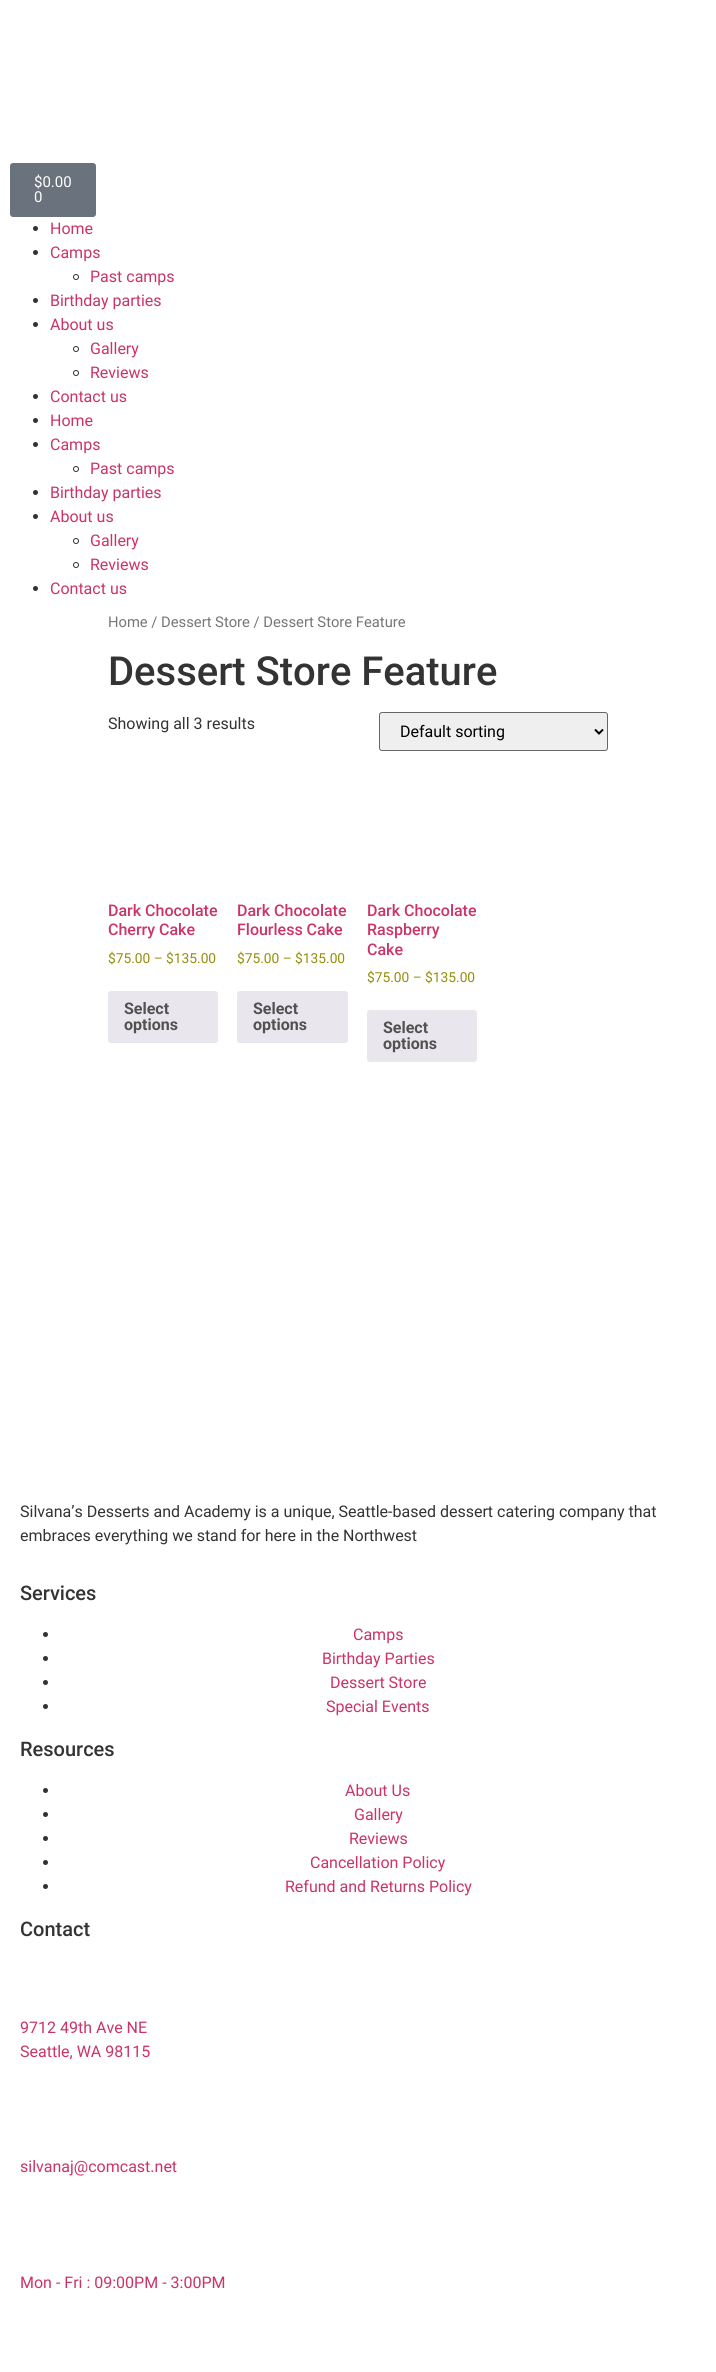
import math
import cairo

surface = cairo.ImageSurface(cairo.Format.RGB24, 716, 2372)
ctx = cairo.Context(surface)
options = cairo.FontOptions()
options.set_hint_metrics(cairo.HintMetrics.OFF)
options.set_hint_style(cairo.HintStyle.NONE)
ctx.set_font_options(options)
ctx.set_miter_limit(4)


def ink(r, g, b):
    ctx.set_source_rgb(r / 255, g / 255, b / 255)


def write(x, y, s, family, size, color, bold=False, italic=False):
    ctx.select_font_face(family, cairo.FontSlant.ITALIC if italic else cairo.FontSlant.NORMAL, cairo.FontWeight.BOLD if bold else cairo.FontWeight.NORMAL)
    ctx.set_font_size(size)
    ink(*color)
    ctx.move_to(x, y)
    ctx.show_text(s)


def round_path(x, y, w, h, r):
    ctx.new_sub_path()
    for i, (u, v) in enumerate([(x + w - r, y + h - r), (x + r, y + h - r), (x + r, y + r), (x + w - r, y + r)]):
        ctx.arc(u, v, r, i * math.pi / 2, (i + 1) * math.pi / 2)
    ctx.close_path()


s1 = dict(family="Roboto", size=15, color=(255, 255, 255))
s2 = dict(family="Roboto", size=16, color=(204, 51, 102))
s3 = dict(family="Roboto", size=14.75, color=(118, 118, 118))
s4 = dict(family="Roboto Medium", size=40, color=(51, 51, 51))
s5 = dict(family="Roboto", size=16, color=(51, 51, 51))
s6 = dict(family="Roboto", size=16, color=(0, 0, 0))
s7 = dict(family="Roboto Medium", size=16, color=(204, 51, 102))
s8 = dict(family="Roboto", size=13.75, color=(149, 142, 9))
s9 = dict(family="Roboto", size=16, color=(81, 81, 81), bold=True)
s10 = dict(family="Roboto Medium", size=20, color=(51, 51, 51))

ink(255, 255, 255)
ctx.paint()
ink(105, 114, 125)
round_path(10, 163, 86, 54, 3)
ctx.fill()
write(34, 187, "$0.00", **s1)
write(34, 202, "0", **s1)
ink(51, 51, 51)
ctx.new_path()
ctx.arc(35.5, 228.5, 2.5, 0, 2 * math.pi)
ctx.fill()
write(50, 234, "Home", **s2)
ink(51, 51, 51)
ctx.new_path()
ctx.arc(35.5, 252.5, 2.5, 0, 2 * math.pi)
ctx.fill()
write(50, 258, "Camps", **s2)
ctx.new_path()
ctx.arc(76, 277, 2.5, 0, 2 * math.pi)
ink(51, 51, 51)
ctx.set_line_width(1)
ctx.stroke()
write(90, 282, "Past camps", **s2)
ink(51, 51, 51)
ctx.new_path()
ctx.arc(35.5, 300.5, 2.5, 0, 2 * math.pi)
ctx.fill()
write(50, 306, "Birthday parties", **s2)
ink(51, 51, 51)
ctx.new_path()
ctx.arc(35.5, 324.5, 2.5, 0, 2 * math.pi)
ctx.fill()
write(50, 330, "About us", **s2)
ctx.new_path()
ctx.arc(76, 349, 2.5, 0, 2 * math.pi)
ink(51, 51, 51)
ctx.stroke()
write(90, 354, "Gallery", **s2)
ctx.new_path()
ctx.arc(76, 373, 2.5, 0, 2 * math.pi)
ink(51, 51, 51)
ctx.stroke()
write(90, 378, "Reviews", **s2)
ink(51, 51, 51)
ctx.new_path()
ctx.arc(35.5, 396.5, 2.5, 0, 2 * math.pi)
ctx.fill()
write(50, 402, "Contact us", **s2)
ink(51, 51, 51)
ctx.new_path()
ctx.arc(35.5, 420.5, 2.5, 0, 2 * math.pi)
ctx.fill()
write(50, 426, "Home", **s2)
ink(51, 51, 51)
ctx.new_path()
ctx.arc(35.5, 444.5, 2.5, 0, 2 * math.pi)
ctx.fill()
write(50, 450, "Camps", **s2)
ctx.new_path()
ctx.arc(76, 469, 2.5, 0, 2 * math.pi)
ink(51, 51, 51)
ctx.stroke()
write(90, 474, "Past camps", **s2)
ink(51, 51, 51)
ctx.new_path()
ctx.arc(35.5, 492.5, 2.5, 0, 2 * math.pi)
ctx.fill()
write(50, 498, "Birthday parties", **s2)
ink(51, 51, 51)
ctx.new_path()
ctx.arc(35.5, 516.5, 2.5, 0, 2 * math.pi)
ctx.fill()
write(50, 522, "About us", **s2)
ctx.new_path()
ctx.arc(76, 541, 2.5, 0, 2 * math.pi)
ink(51, 51, 51)
ctx.stroke()
write(90, 546, "Gallery", **s2)
ctx.new_path()
ctx.arc(76, 565, 2.5, 0, 2 * math.pi)
ink(51, 51, 51)
ctx.stroke()
write(90, 570, "Reviews", **s2)
ink(51, 51, 51)
ctx.new_path()
ctx.arc(35.5, 588.5, 2.5, 0, 2 * math.pi)
ctx.fill()
write(50, 594, "Contact us", **s2)
write(108, 627, "Home / Dessert Store / Dessert Store Feature", **s3)
write(108, 685, "Dessert Store Feature", **s4)
write(108, 729, "Showing all 3 results", **s5)
ink(239, 239, 239)
round_path(379.5, 712.5, 228, 38, 2.5)
ctx.fill_preserve()
ink(102, 102, 102)
ctx.stroke()
ctx.new_path()
ctx.move_to(595, 729.5)
ctx.line_to(599, 733.5)
ctx.line_to(603, 729.5)
ink(0, 0, 0)
ctx.set_line_width(2)
ctx.stroke()
write(400, 737, "Default sorting", **s6)
write(108, 916, "Dark Chocolate", **s7)
write(108, 935, "Cherry Cake", **s7)
write(108, 963, "$75.00 – $135.00", **s8)
ink(233, 230, 237)
round_path(108, 991, 110, 52, 3)
ctx.fill()
write(124, 1014, "Select", **s9)
write(124, 1030, "options", **s9)
write(237, 916, "Dark Chocolate", **s7)
write(237, 935, "Flourless Cake", **s7)
write(237, 963, "$75.00 – $135.00", **s8)
ink(233, 230, 237)
round_path(237, 991, 111, 52, 3)
ctx.fill()
write(253, 1014, "Select", **s9)
write(253, 1030, "options", **s9)
write(367, 916, "Dark Chocolate", **s7)
write(367, 935, "Raspberry", **s7)
write(367, 955, "Cake", **s7)
write(367, 982, "$75.00 – $135.00", **s8)
ink(233, 230, 237)
round_path(367, 1010, 110, 52, 3)
ctx.fill()
write(383, 1033, "Select", **s9)
write(383, 1049, "options", **s9)
write(20, 1517, "Silvana’s Desserts and Academy is a unique, Seattle-based dessert catering company that", **s5)
write(20, 1541, "embraces everything we stand for here in the Northwest", **s5)
write(20, 1600, "Services", **s10)
ctx.new_path()
ctx.arc(45.5, 1634.5, 2.5, 0, 2 * math.pi)
ctx.fill()
write(353, 1640, "Camps", **s2)
ink(51, 51, 51)
ctx.new_path()
ctx.arc(45.5, 1658.5, 2.5, 0, 2 * math.pi)
ctx.fill()
write(322, 1664, "Birthday Parties", **s2)
ink(51, 51, 51)
ctx.new_path()
ctx.arc(45.5, 1682.5, 2.5, 0, 2 * math.pi)
ctx.fill()
write(330, 1688, "Dessert Store", **s2)
ink(51, 51, 51)
ctx.new_path()
ctx.arc(45.5, 1706.5, 2.5, 0, 2 * math.pi)
ctx.fill()
write(326, 1712, "Special Events", **s2)
write(20, 1756, "Resources", **s10)
ctx.new_path()
ctx.arc(45.5, 1790.5, 2.5, 0, 2 * math.pi)
ctx.fill()
write(345, 1796, "About Us", **s2)
ink(51, 51, 51)
ctx.new_path()
ctx.arc(45.5, 1814.5, 2.5, 0, 2 * math.pi)
ctx.fill()
write(354, 1820, "Gallery", **s2)
ink(51, 51, 51)
ctx.new_path()
ctx.arc(45.5, 1838.5, 2.5, 0, 2 * math.pi)
ctx.fill()
write(349, 1844, "Reviews", **s2)
ink(51, 51, 51)
ctx.new_path()
ctx.arc(45.5, 1862.5, 2.5, 0, 2 * math.pi)
ctx.fill()
write(310, 1868, "Cancellation Policy", **s2)
ink(51, 51, 51)
ctx.new_path()
ctx.arc(45.5, 1886.5, 2.5, 0, 2 * math.pi)
ctx.fill()
write(285, 1892, "Refund and Returns Policy", **s2)
write(20, 1936, "Contact", **s10)
write(20, 2033, "9712 49th Ave NE", **s2)
write(20, 2057, "Seattle, WA 98115", **s2)
write(20, 2172, "silvanaj@comcast.net", **s2)
write(20, 2288, "Mon - Fri : 09:00PM - 3:00PM", **s2)
surface.write_to_png("screenshot.png")
